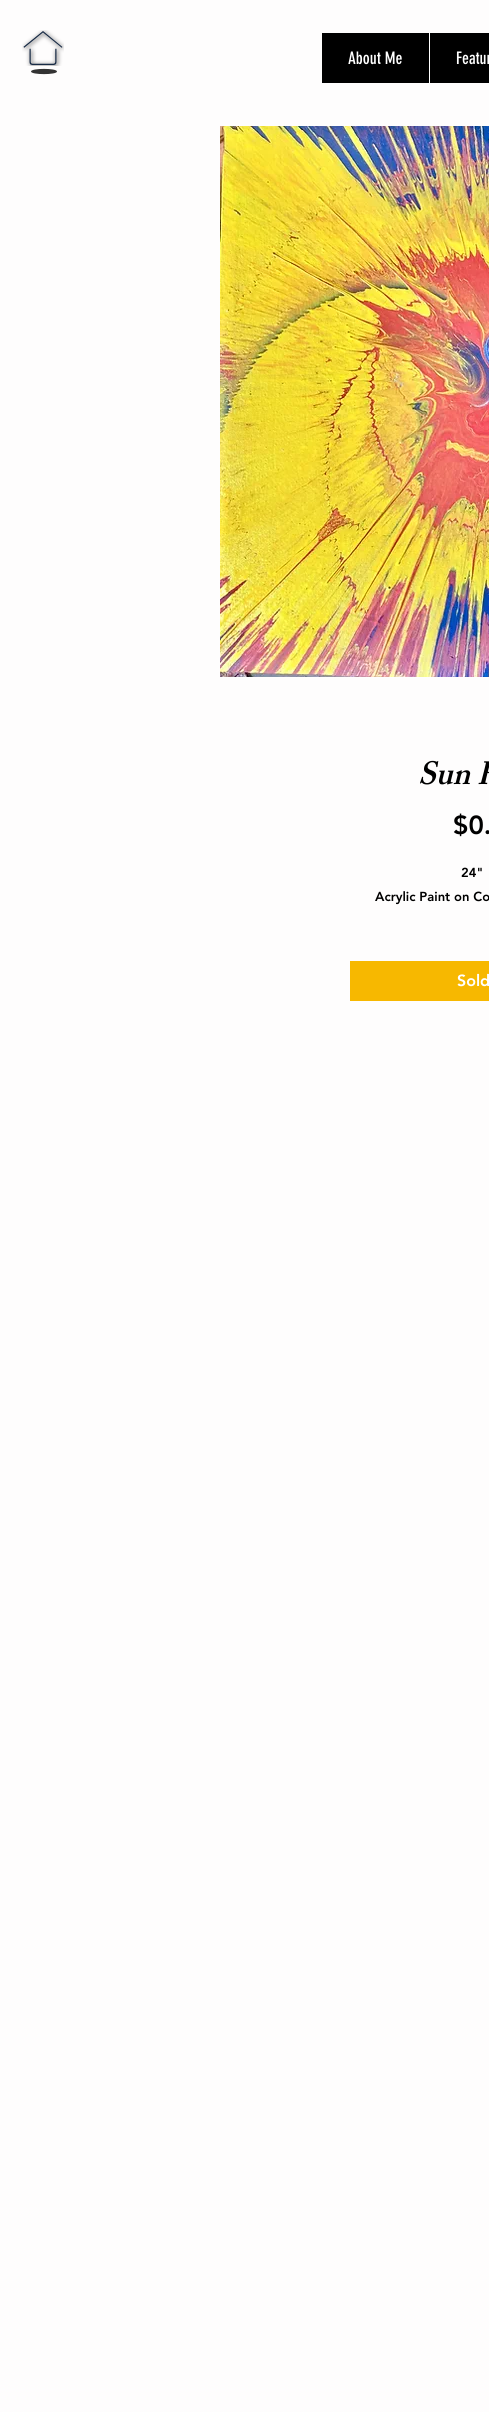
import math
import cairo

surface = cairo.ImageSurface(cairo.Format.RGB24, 489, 2412)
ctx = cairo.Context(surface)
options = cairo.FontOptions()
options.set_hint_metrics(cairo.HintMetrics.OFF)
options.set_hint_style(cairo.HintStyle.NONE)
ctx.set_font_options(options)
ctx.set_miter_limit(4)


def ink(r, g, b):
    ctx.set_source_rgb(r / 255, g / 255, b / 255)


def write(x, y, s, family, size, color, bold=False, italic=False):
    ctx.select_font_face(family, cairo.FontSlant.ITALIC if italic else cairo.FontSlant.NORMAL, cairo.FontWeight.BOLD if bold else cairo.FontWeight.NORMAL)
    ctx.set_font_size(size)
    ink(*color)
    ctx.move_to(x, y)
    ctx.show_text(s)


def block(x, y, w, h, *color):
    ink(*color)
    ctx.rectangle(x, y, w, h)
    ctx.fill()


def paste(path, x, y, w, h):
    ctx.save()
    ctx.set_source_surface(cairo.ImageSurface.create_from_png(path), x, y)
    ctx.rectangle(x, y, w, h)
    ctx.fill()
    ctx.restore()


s1 = dict(family="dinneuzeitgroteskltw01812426", size=17, color=(255, 255, 255))
s2 = dict(family="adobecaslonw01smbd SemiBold", size=32, color=(0, 0, 0), italic=True)
s3 = dict(family="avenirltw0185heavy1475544 Black", size=26, color=(0, 0, 0))
s4 = dict(family="avenirltw0185heavy1475544 Black", size=13, color=(0, 0, 0))
s5 = dict(family="avenirltw0185heavy1475544 Black", size=16, color=(255, 255, 255))

ink(254, 253, 253)
ctx.paint()
paste("pic1.png", 22, 30, 42, 36)
block(322, 33, 167, 50, 0, 0, 0)
write(348, 64, "About Me", **s1)
block(429, 33, 1, 50, 255, 255, 255)
write(456, 64, "Featur", **s1)
ink(51, 51, 51)
ctx.new_path()
ctx.move_to(57, 71.5)
ctx.curve_to(57, 75, 31, 75, 31, 71.5)
ctx.curve_to(31, 68, 57, 68, 57, 71.5)
ctx.close_path()
ctx.fill()
paste("pic2.png", 220, 126, 269, 551)
write(418, 784, "Sun K", **s2)
write(453, 834, "$0.", **s3)
write(461, 877, "24\"", **s4)
write(375, 901, "Acrylic Paint on Co", **s4)
block(350, 961, 139, 40, 247, 184, 0)
write(457, 986, "Sold", **s5)
surface.write_to_png("screenshot.png")
